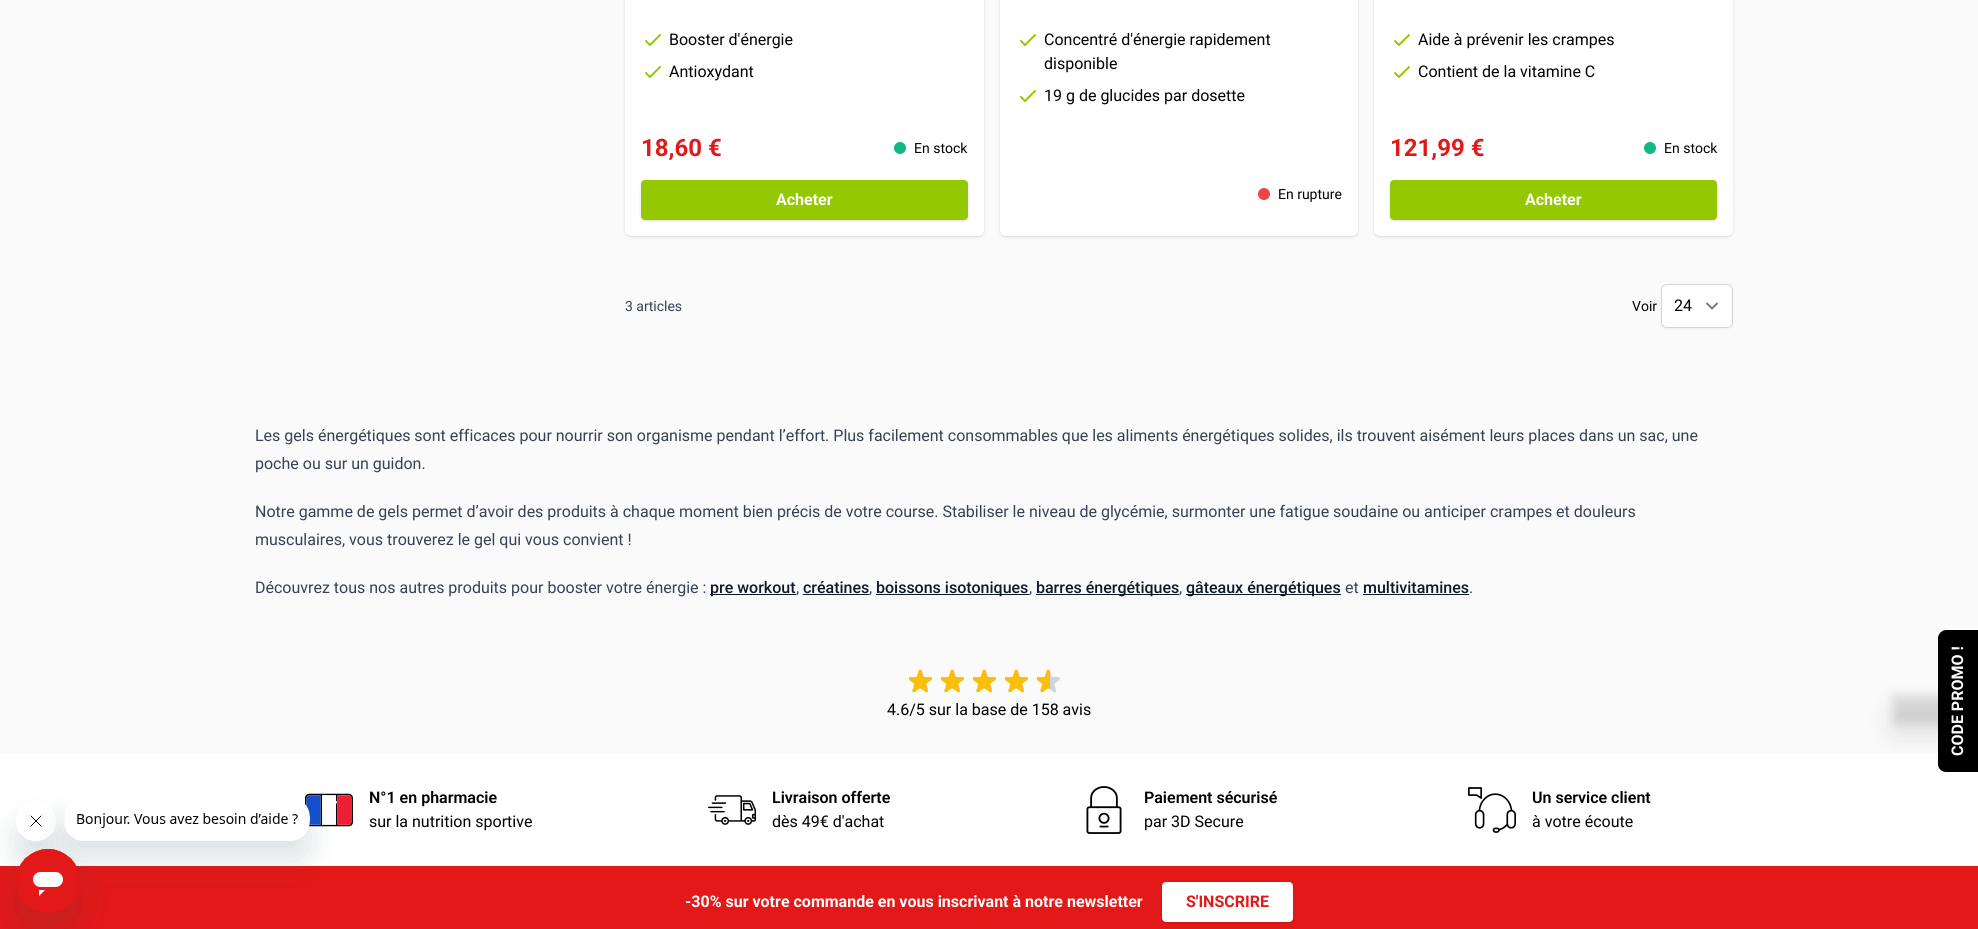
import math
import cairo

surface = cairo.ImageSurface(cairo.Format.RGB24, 1978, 929)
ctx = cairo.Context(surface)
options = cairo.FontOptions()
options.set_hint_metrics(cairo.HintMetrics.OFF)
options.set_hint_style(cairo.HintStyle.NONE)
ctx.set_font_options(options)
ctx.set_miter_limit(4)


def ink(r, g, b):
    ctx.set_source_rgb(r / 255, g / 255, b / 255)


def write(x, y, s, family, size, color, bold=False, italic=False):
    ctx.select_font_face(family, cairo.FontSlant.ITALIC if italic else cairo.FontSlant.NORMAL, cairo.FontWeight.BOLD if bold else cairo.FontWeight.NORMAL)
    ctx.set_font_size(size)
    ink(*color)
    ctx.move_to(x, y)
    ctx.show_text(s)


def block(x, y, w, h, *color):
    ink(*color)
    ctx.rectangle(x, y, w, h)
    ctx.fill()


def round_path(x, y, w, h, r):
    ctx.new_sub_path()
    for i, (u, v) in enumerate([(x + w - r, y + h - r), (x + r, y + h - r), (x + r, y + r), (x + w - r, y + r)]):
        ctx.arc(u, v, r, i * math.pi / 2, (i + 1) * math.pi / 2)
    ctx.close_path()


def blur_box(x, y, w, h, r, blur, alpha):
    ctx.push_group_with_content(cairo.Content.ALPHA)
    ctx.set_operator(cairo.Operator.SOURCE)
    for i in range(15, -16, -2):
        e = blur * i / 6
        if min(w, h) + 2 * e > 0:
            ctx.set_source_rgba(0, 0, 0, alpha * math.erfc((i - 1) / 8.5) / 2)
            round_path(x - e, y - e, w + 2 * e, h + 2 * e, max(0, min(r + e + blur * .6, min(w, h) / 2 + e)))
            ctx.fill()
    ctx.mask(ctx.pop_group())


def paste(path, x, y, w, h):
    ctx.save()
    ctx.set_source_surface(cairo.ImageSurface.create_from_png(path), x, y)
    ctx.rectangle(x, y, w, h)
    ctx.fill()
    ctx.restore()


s1 = dict(family="Roboto", size=16, color=(0, 0, 0))
s2 = dict(family="Roboto", size=24, color=(227, 24, 24), bold=True)
s3 = dict(family="Roboto", size=14, color=(0, 0, 0))
s4 = dict(family="Roboto", size=16, color=(255, 255, 255), bold=True)
s5 = dict(family="Roboto", size=14, color=(55, 65, 81))
s6 = dict(family="Roboto", size=16, color=(55, 65, 81))
s7 = dict(family="Roboto Medium", size=16, color=(17, 24, 39))
s8 = dict(family="Roboto", size=16, color=(227, 24, 24), bold=True)
s9 = dict(family="Roboto SemiBold", size=16, color=(0, 0, 0))

ink(250, 250, 250)
ctx.paint()
block(0, 866, 1978, 63, 227, 24, 24)
block(0, 754, 1978, 112, 255, 255, 255)
ctx.save()
ctx.set_fill_rule(cairo.FillRule.EVEN_ODD)
ctx.new_path()
ctx.move_to(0, 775)
ctx.line_to(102, 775)
ctx.line_to(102, 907)
ctx.line_to(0, 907)
ctx.close_path()
ctx.move_to(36, 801)
ctx.curve_to(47, 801, 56, 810, 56, 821)
ctx.curve_to(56, 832, 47, 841, 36, 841)
ctx.curve_to(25, 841, 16, 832, 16, 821)
ctx.curve_to(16, 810, 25, 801, 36, 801)
ctx.close_path()
ctx.clip()
ink(23, 73, 77)
blur_box(16, 821, 40, 40, 20, 15, 0.15)
ctx.restore()
paste("pic2.png", 30, 815, 12, 12)
paste("pic6.png", 305, 793, 48, 34)
ctx.save()
ctx.set_fill_rule(cairo.FillRule.EVEN_ODD)
ctx.new_path()
ctx.move_to(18, 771)
ctx.line_to(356, 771)
ctx.line_to(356, 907)
ctx.line_to(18, 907)
ctx.close_path()
ctx.move_to(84, 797)
ctx.line_to(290, 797)
ctx.curve_to(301, 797, 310, 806, 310, 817)
ctx.line_to(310, 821)
ctx.curve_to(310, 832, 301, 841, 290, 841)
ctx.line_to(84, 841)
ctx.curve_to(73, 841, 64, 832, 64, 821)
ctx.line_to(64, 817)
ctx.curve_to(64, 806, 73, 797, 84, 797)
ctx.close_path()
ctx.clip()
ink(23, 73, 77)
blur_box(64, 817, 246, 44, 20, 15, 0.15)
ctx.restore()
paste("pic1.png", 65, 804, 245, 37)
ink(23, 73, 77)
blur_box(16, 869, 64, 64, 32, 15, 0.15)
paste("pic3.png", 16, 849, 64, 64)
ink(0, 0, 0)
blur_box(626, -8, 357, 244, 5, 1, 0.1)
blur_box(625, -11, 359, 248, 6, 1.5, 0.1)
ink(255, 255, 255)
round_path(625, -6, 359, 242, 6)
ctx.fill()
ctx.new_path()
ctx.move_to(646, 41)
ctx.line_to(650, 45)
ctx.line_to(660, 35)
ctx.move_to(646, 73)
ctx.line_to(650, 77)
ctx.line_to(660, 67)
ink(148, 200, 0)
ctx.set_line_cap(cairo.LineCap.ROUND)
ctx.set_line_join(cairo.LineJoin.ROUND)
ctx.stroke()
write(669, 45, "Booster d'énergie", **s1)
write(669, 77, "Antioxydant", **s1)
write(641, 156, "18,60 €", **s2)
ink(16, 185, 129)
ctx.new_path()
ctx.arc(900, 148, 6, 0, 2 * math.pi)
ctx.fill()
write(914, 153, "En stock", **s3)
ink(0, 0, 0)
blur_box(642, 182, 325, 38, 3, 1, 0.1)
blur_box(641, 181, 327, 40, 4, 1.5, 0.1)
ink(148, 200, 0)
round_path(641, 180, 327, 40, 4)
ctx.fill()
write(776, 205, "Acheter", **s4)
ink(0, 0, 0)
blur_box(1001, -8, 356, 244, 5, 1, 0.1)
blur_box(1000, -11, 358, 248, 6, 1.5, 0.1)
ink(255, 255, 255)
round_path(1000, -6, 358, 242, 6)
ctx.fill()
ctx.new_path()
ctx.move_to(1021, 41)
ctx.line_to(1025, 45)
ctx.line_to(1035, 35)
ink(148, 200, 0)
ctx.stroke()
write(1044, 45, "Concentré d'énergie rapidement", **s1)
write(1044, 69, "disponible", **s1)
ctx.new_path()
ctx.move_to(1021, 97)
ctx.line_to(1025, 101)
ctx.line_to(1035, 91)
ink(148, 200, 0)
ctx.stroke()
write(1044, 101, "19 g de glucides par dosette", **s1)
ink(239, 68, 68)
ctx.new_path()
ctx.arc(1264, 194, 6, 0, 2 * math.pi)
ctx.fill()
write(1278, 199, "En rupture", **s3)
ink(0, 0, 0)
blur_box(1375, -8, 357, 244, 5, 1, 0.1)
blur_box(1374, -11, 359, 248, 6, 1.5, 0.1)
ink(255, 255, 255)
round_path(1374, -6, 359, 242, 6)
ctx.fill()
ctx.new_path()
ctx.move_to(1395, 41)
ctx.line_to(1399, 45)
ctx.line_to(1409, 35)
ctx.move_to(1395, 73)
ctx.line_to(1399, 77)
ctx.line_to(1409, 67)
ink(148, 200, 0)
ctx.stroke()
write(1418, 45, "Aide à prévenir les crampes", **s1)
write(1418, 77, "Contient de la vitamine C", **s1)
write(1390, 156, "121,99 €", **s2)
ink(16, 185, 129)
ctx.new_path()
ctx.arc(1650, 148, 6, 0, 2 * math.pi)
ctx.fill()
write(1664, 153, "En stock", **s3)
ink(0, 0, 0)
blur_box(1391, 182, 325, 38, 3, 1, 0.1)
blur_box(1390, 181, 327, 40, 4, 1.5, 0.1)
ink(148, 200, 0)
round_path(1390, 180, 327, 40, 4)
ctx.fill()
write(1525, 205, "Acheter", **s4)
write(625, 311, "3 articles", **s5)
write(1632, 311, "Voir", **s3)
ink(0, 0, 0)
blur_box(1661, 285, 72, 44, 6, 1, 0.05)
ink(255, 255, 255)
round_path(1661, 284, 72, 44, 6)
ctx.fill()
ctx.new_path()
ctx.move_to(1707, 303.5)
ctx.line_to(1712, 308.5)
ctx.line_to(1717, 303.5)
ink(107, 114, 128)
ctx.set_line_width(1.8)
ctx.stroke()
round_path(1661.5, 284.5, 71, 43, 5.5)
ink(209, 213, 219)
ctx.set_line_width(1)
ctx.set_line_cap(cairo.LineCap.BUTT)
ctx.set_line_join(cairo.LineJoin.MITER)
ctx.stroke()
write(1674, 311, "24", **s1)
write(255, 441, "Les gels énergétiques sont efficaces pour nourrir son organisme pendant l’effort. Plus facilement consommables que les aliments énergétiques solides, ils trouvent aisément leurs places dans un sac, une", **s6)
write(255, 469, "poche ou sur un guidon.", **s6)
write(255, 517, "Notre gamme de gels permet d’avoir des produits à chaque moment bien précis de votre course. Stabiliser le niveau de glycémie, surmonter une fatigue soudaine ou anticiper crampes et douleurs", **s6)
write(255, 545, "musculaires, vous trouverez le gel qui vous convient !", **s6)
write(255, 593, "Découvrez tous nos autres produits pour booster votre énergie :", **s6)
block(710, 594, 86, 1, 17, 24, 39)
write(710, 593, "pre workout", **s7)
write(796, 593, ",", **s6)
write(803, 593, "créatines", **s7)
block(803, 594, 66, 1, 17, 24, 39)
write(869, 593, ",", **s6)
block(876, 594, 153, 1, 17, 24, 39)
write(876, 593, "boissons isotoniques", **s7)
write(1029, 593, ",", **s6)
block(1036, 594, 143, 1, 17, 24, 39)
write(1036, 593, "barres énergétiques", **s7)
write(1179, 593, ",", **s6)
block(1186, 594, 155, 1, 17, 24, 39)
write(1186, 593, "gâteaux énergétiques", **s7)
write(1345, 593, "et", **s6)
write(1363, 593, "multivitamines", **s7)
block(1363, 594, 106, 1, 17, 24, 39)
write(1469, 593, ".", **s6)
ink(0, 0, 0)
blur_box(1893, 695, 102, 28, 2, 5, 0.1)
blur_box(1892, 706, 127, 30, 3, 12.5, 0.1)
ink(0, 0, 0)
ctx.new_path()
ctx.move_to(1938, 764)
ctx.line_to(1938, 638)
ctx.curve_to(1938, 634, 1942, 630, 1946, 630)
ctx.line_to(1978, 630)
ctx.line_to(1978, 772)
ctx.line_to(1946, 772)
ctx.curve_to(1942, 772, 1938, 769, 1938, 764)
ctx.close_path()
ctx.fill()
ctx.save()
ctx.translate(1963, 756)
ctx.rotate(-90 * math.pi / 180)
write(0, 0, "CODE PROMO !", **s4)
ctx.restore()
write(685, 907, "-30% sur votre commande en vous inscrivant à notre newsletter", **s4)
ink(0, 0, 0)
blur_box(1163, 884, 129, 38, 3, 1, 0.1)
blur_box(1162, 883, 131, 40, 4, 1.5, 0.1)
ink(255, 255, 255)
round_path(1162, 882, 131, 40, 4)
ctx.fill()
write(1186, 907, "S'INSCRIRE", **s8)
paste("pic4.png", 909, 669, 23, 24)
paste("pic4.png", 941, 669, 23, 24)
paste("pic4.png", 973, 669, 23, 24)
paste("pic4.png", 1005, 669, 23, 24)
paste("pic5.png", 1037, 669, 23, 24)
write(887, 715, "4.6/5 sur la base de 158 avis", **s1)
write(369, 803, "N°1 en pharmacie", **s9)
write(369, 827, "sur la nutrition sportive", **s1)
paste("pic7.png", 708, 795, 48, 30)
write(772, 803, "Livraison offerte", **s9)
write(772, 827, "dès 49€ d'achat", **s1)
paste("pic8.png", 1086, 786, 36, 48)
write(1144, 803, "Paiement sécurisé", **s9)
write(1144, 827, "par 3D Secure", **s1)
paste("pic9.png", 1468, 787, 48, 46)
write(1532, 803, "Un service client", **s9)
write(1532, 827, "à votre écoute", **s1)
surface.write_to_png("screenshot.png")
